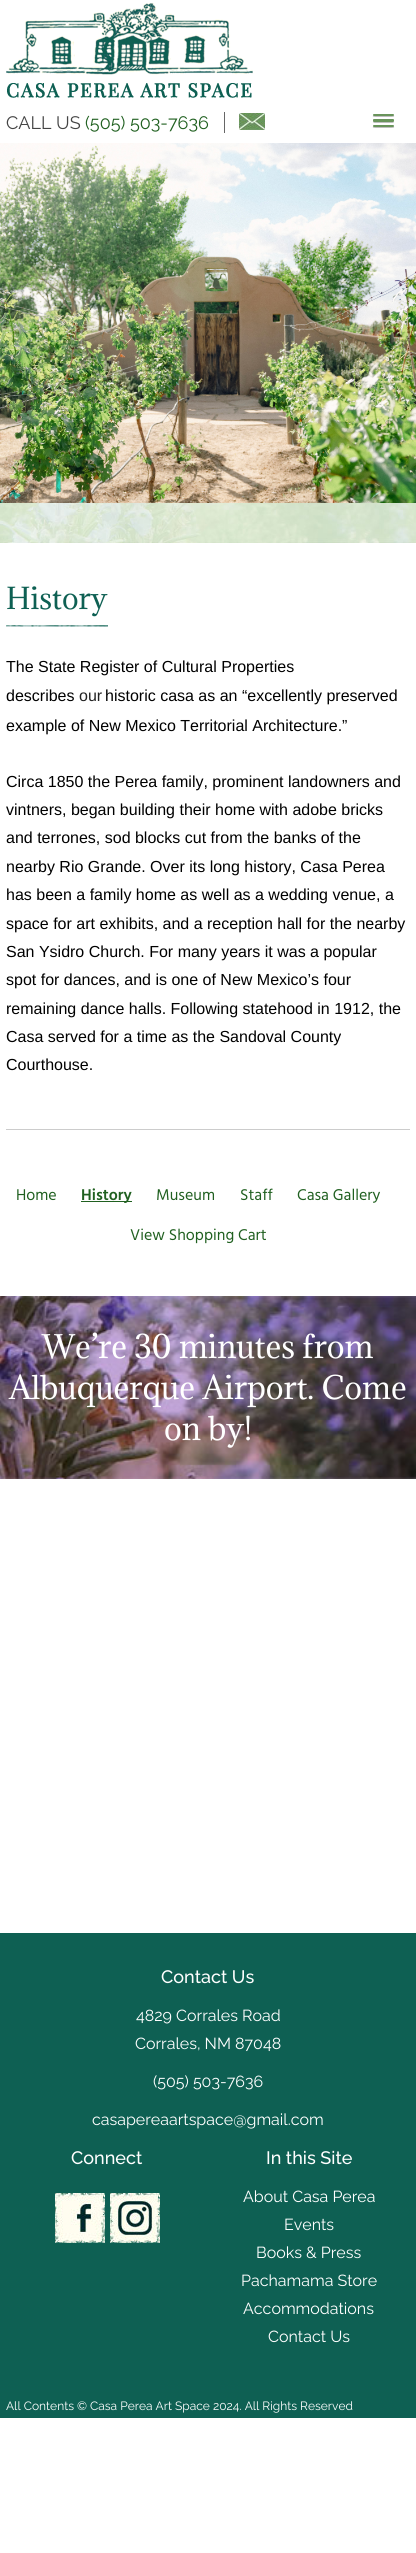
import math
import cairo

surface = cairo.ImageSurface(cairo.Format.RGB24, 416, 2553)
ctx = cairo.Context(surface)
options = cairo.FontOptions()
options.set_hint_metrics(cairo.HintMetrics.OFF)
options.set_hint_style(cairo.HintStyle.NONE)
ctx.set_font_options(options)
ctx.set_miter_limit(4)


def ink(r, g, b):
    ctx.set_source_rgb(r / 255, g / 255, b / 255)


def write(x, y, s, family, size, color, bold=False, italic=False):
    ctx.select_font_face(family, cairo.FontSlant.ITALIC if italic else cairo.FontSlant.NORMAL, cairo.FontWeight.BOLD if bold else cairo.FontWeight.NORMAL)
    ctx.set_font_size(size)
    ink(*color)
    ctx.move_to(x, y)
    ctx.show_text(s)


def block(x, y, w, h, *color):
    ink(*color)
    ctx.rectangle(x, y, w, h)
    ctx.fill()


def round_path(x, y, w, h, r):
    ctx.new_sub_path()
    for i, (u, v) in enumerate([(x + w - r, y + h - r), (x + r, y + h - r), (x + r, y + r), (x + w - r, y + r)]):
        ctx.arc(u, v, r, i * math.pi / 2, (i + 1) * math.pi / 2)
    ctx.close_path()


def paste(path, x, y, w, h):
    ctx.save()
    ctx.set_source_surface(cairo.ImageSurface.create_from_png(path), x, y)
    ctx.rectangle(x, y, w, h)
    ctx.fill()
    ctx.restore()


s1 = dict(family="Raleway", size=18, color=(68, 68, 68))
s2 = dict(family="Raleway", size=18, color=(32, 96, 32))
s3 = dict(family="Adamina", size=28, color=(14, 96, 83))
s4 = dict(family="Liberation Sans", size=16, color=(0, 0, 0))
s5 = dict(family="Liberation Sans", size=16, color=(34, 34, 34))
s6 = dict(family="Hind", size=16, color=(32, 96, 32))
s7 = dict(family="Hind SemiBold", size=16, color=(32, 96, 32))
s8 = dict(family="Adamina", size=30, color=(255, 255, 255))
s9 = dict(family="Raleway Medium", size=18, color=(255, 255, 255))
s10 = dict(family="Raleway", size=16, color=(255, 255, 255))
s11 = dict(family="Raleway", size=12, color=(255, 255, 255))

ink(255, 255, 255)
ctx.paint()
paste("pic1.png", 6, 3, 247, 95)
write(6, 129, "CALL US", **s1)
write(85, 129, "(505) 503-7636", **s2)
block(224, 112, 1, 21, 102, 102, 102)
paste("pic2.png", 239, 113, 26, 17)
ink(191, 191, 191)
ctx.new_path()
ctx.move_to(373, 115.5)
ctx.curve_to(372, 117, 375, 117, 377, 117)
ctx.line_to(390, 117)
ctx.curve_to(392, 117, 395, 117, 394, 115.5)
ctx.line_to(393, 116)
ctx.line_to(374, 116)
ctx.close_path()
ctx.fill()
ink(105, 148, 91)
round_path(373, 114, 21, 2, 1)
ctx.fill()
ink(191, 191, 191)
ctx.new_path()
ctx.move_to(373, 121)
ctx.curve_to(373, 123.5, 374.5, 123, 377, 123)
ctx.line_to(390, 123)
ctx.curve_to(392.5, 123, 394, 123.5, 394, 121)
ctx.curve_to(394, 121.5, 393.5, 122, 393, 122)
ctx.line_to(374, 122)
ctx.curve_to(373.5, 122, 373, 121.5, 373, 121)
ctx.close_path()
ctx.fill()
ink(105, 148, 91)
round_path(373, 119, 21, 3, 1)
ctx.fill()
ink(191, 191, 191)
ctx.new_path()
ctx.move_to(373, 126.5)
ctx.curve_to(372, 128, 375, 128, 377, 128)
ctx.line_to(390, 128)
ctx.curve_to(392, 128, 395, 128, 394, 126.5)
ctx.line_to(393, 127)
ctx.line_to(374, 127)
ctx.close_path()
ctx.fill()
ink(105, 148, 91)
round_path(373, 125, 21, 2, 1)
ctx.fill()
paste("pic3.png", 0, 503, 416, 40)
paste("pic4.png", 0, 143, 416, 360)
paste("pic5.png", 6, 625, 102, 2)
write(6, 609, "History", **s3)
write(6, 672, "The State Register of Cultural Properties", **s4)
write(6, 701, "describes", **s4)
write(79, 701, "our", **s5)
write(105, 701, "historic casa as an “excellently preserved", **s4)
write(6, 731, "example of New Mexico Territorial Architecture.”", **s4)
write(6, 787, "Circa 1850 the Perea family, prominent landowners and", **s4)
write(6, 815, "vintners, began building their home with adobe bricks", **s4)
write(6, 843, "and terrones, sod blocks cut from the banks of the", **s4)
write(6, 872, "nearby Rio Grande. Over its long history, Casa Perea", **s4)
write(6, 900, "has been a family home as well as a wedding venue, a", **s4)
write(6, 929, "space for art exhibits, and a reception hall for the nearby", **s4)
write(6, 957, "San Ysidro Church. For many years it was a popular", **s4)
write(6, 985, "spot for dances, and is one of New Mexico’s four", **s4)
write(6, 1014, "remaining dance halls. Following statehood in 1912, the", **s4)
write(6, 1042, "Casa served for a time as the Sandoval County", **s4)
write(6, 1070, "Courthouse.", **s4)
block(6, 1129, 404, 1, 204, 204, 204)
write(16, 1200, "Home", **s6)
block(81, 1201, 51, 1, 32, 96, 32)
write(81, 1200, "History", **s7)
write(156, 1200, "Museum", **s6)
write(240, 1200, "Staff", **s6)
write(297, 1200, "Casa Gallery", **s6)
write(130, 1240, "View Shopping Cart", **s6)
paste("pic6.png", 0, 1296, 416, 183)
write(42, 1358, "We’re 30 minutes from", **s8)
write(9, 1399, "Albuquerque Airport. Come", **s8)
write(164, 1440, "on by!", **s8)
block(0, 1933, 416, 485, 14, 96, 83)
write(161, 1983, "Contact Us", **s9)
write(136, 2021, "4829 Corrales Road", **s10)
write(135, 2049, "Corrales, NM 87048", **s10)
write(153, 2087, "(505) 503-7636", **s10)
write(92, 2125, "casapereaartspace@gmail.com", **s10)
write(71, 2164, "Connect", **s9)
paste("pic7.png", 55, 2193, 50, 50)
paste("pic8.png", 110, 2193, 50, 50)
write(266, 2164, "In this Site", **s9)
write(243, 2202, "About Casa Perea", **s10)
write(284, 2230, "Events", **s10)
write(256, 2258, "Books & Press", **s10)
write(241, 2286, "Pachamama Store", **s10)
write(243, 2314, "Accommodations", **s10)
write(268, 2342, "Contact Us", **s10)
write(6, 2410, "All Contents © Casa Perea Art Space 2024. All Rights Reserved", **s11)
surface.write_to_png("screenshot.png")
